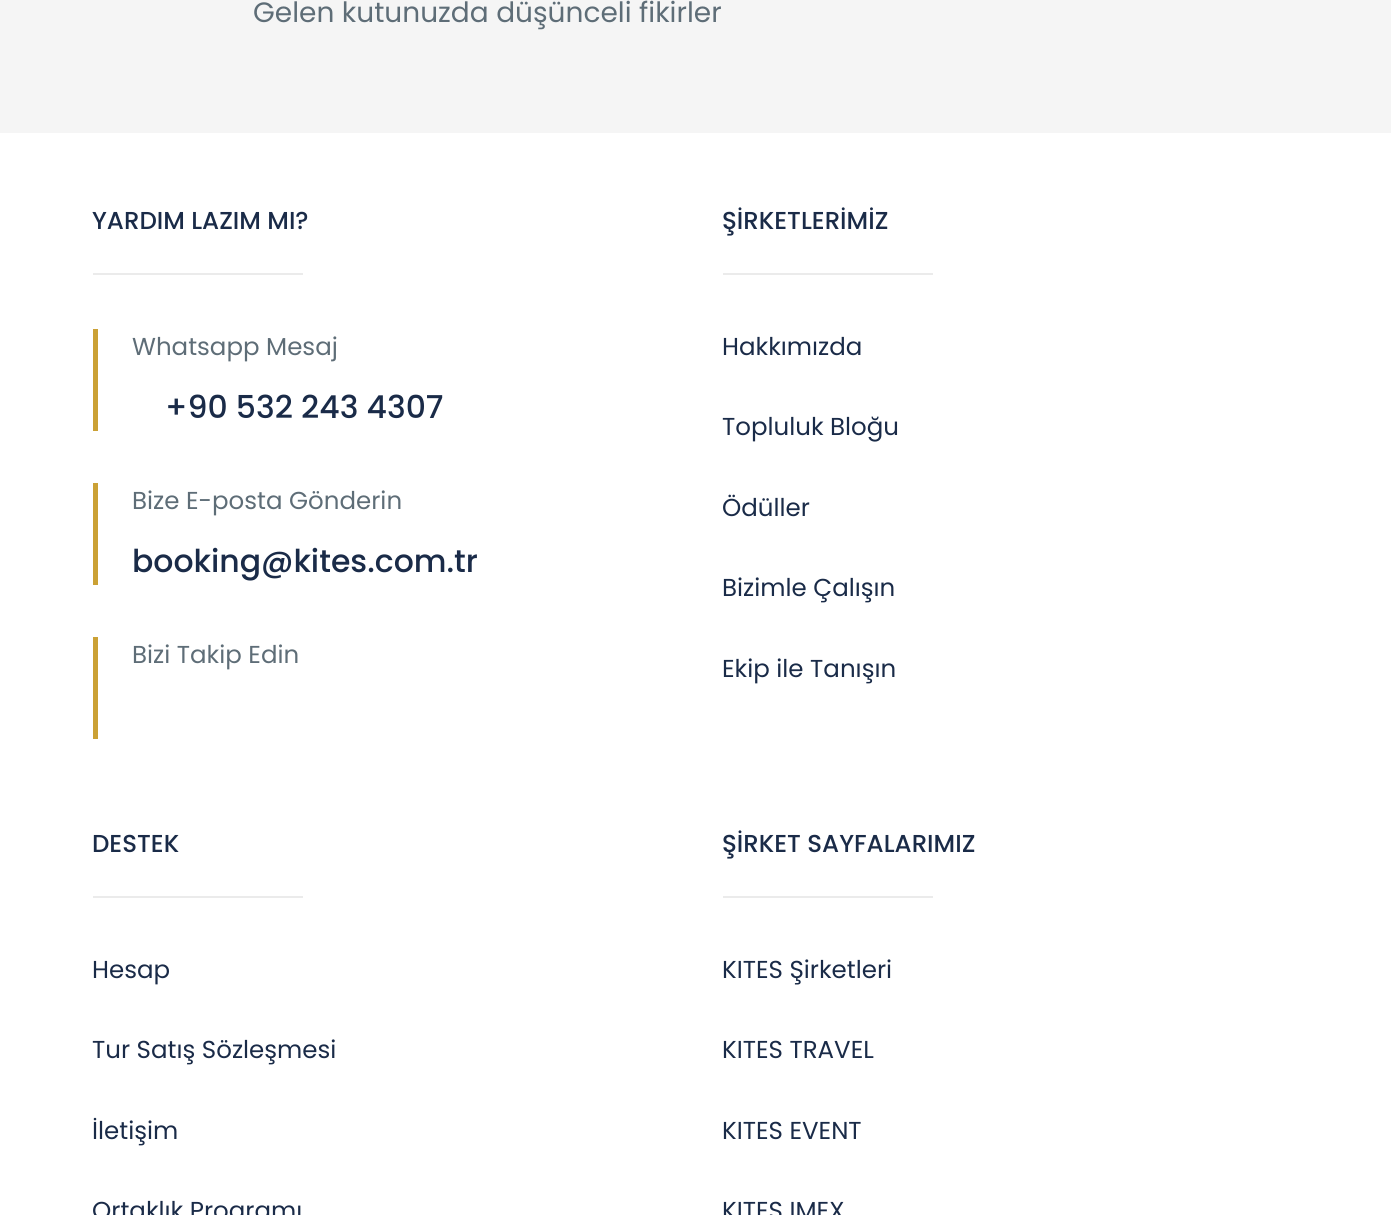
import math
import cairo

surface = cairo.ImageSurface(cairo.Format.RGB24, 1391, 1215)
ctx = cairo.Context(surface)
options = cairo.FontOptions()
options.set_hint_metrics(cairo.HintMetrics.OFF)
options.set_hint_style(cairo.HintStyle.NONE)
ctx.set_font_options(options)
ctx.set_miter_limit(4)


def ink(r, g, b):
    ctx.set_source_rgb(r / 255, g / 255, b / 255)


def write(x, y, s, family, size, color, bold=False, italic=False):
    ctx.select_font_face(family, cairo.FontSlant.ITALIC if italic else cairo.FontSlant.NORMAL, cairo.FontWeight.BOLD if bold else cairo.FontWeight.NORMAL)
    ctx.set_font_size(size)
    ink(*color)
    ctx.move_to(x, y)
    ctx.show_text(s)


def block(x, y, w, h, *color):
    ink(*color)
    ctx.rectangle(x, y, w, h)
    ctx.fill()


s1 = dict(family="Poppins", size=28, color=(94, 109, 119))
s2 = dict(family="Poppins Medium", size=24.5, color=(26, 43, 72))
s3 = dict(family="Poppins", size=24.5, color=(94, 109, 119))
s4 = dict(family="Poppins Medium", size=31.5, color=(26, 43, 72))
s5 = dict(family="Poppins", size=24.5, color=(26, 43, 72))

ink(255, 255, 255)
ctx.paint()
block(0, 0, 1391, 133, 245, 245, 245)
write(253, 22, "Gelen kutunuzda düşünceli fikirler", **s1)
write(92, 229, "YARDIM LAZIM MI?", **s2)
block(93, 273, 210, 2, 235, 235, 235)
block(93, 329, 5, 102, 203, 161, 53)
write(132, 355, "Whatsapp Mesaj", **s3)
write(165, 418, "+90 532 243 4307", **s4)
block(93, 483, 5, 102, 203, 161, 53)
write(132, 509, "Bize E-posta Gönderin", **s3)
write(132, 572, "booking@kites.com.tr", **s4)
block(93, 637, 5, 102, 203, 161, 53)
write(132, 663, "Bizi Takip Edin", **s3)
write(722, 229, "ŞİRKETLERİMİZ", **s2)
block(723, 273, 210, 2, 235, 235, 235)
write(722, 355, "Hakkımızda", **s5)
write(722, 435, "Topluluk Bloğu", **s5)
write(722, 516, "Ödüller", **s5)
write(722, 596, "Bizimle Çalışın", **s5)
write(722, 677, "Ekip ile Tanışın", **s5)
write(92, 852, "DESTEK", **s2)
block(93, 896, 210, 2, 235, 235, 235)
write(92, 978, "Hesap", **s5)
write(92, 1058, "Tur Satış Sözleşmesi", **s5)
write(92, 1139, "İletişim", **s5)
write(92, 1219, "Ortaklık Programı", **s5)
write(722, 852, "ŞİRKET SAYFALARIMIZ", **s2)
block(723, 896, 210, 2, 235, 235, 235)
write(722, 978, "KITES Şirketleri", **s5)
write(722, 1058, "KITES TRAVEL", **s5)
write(722, 1139, "KITES EVENT", **s5)
write(722, 1219, "KITES IMEX", **s5)
surface.write_to_png("screenshot.png")
